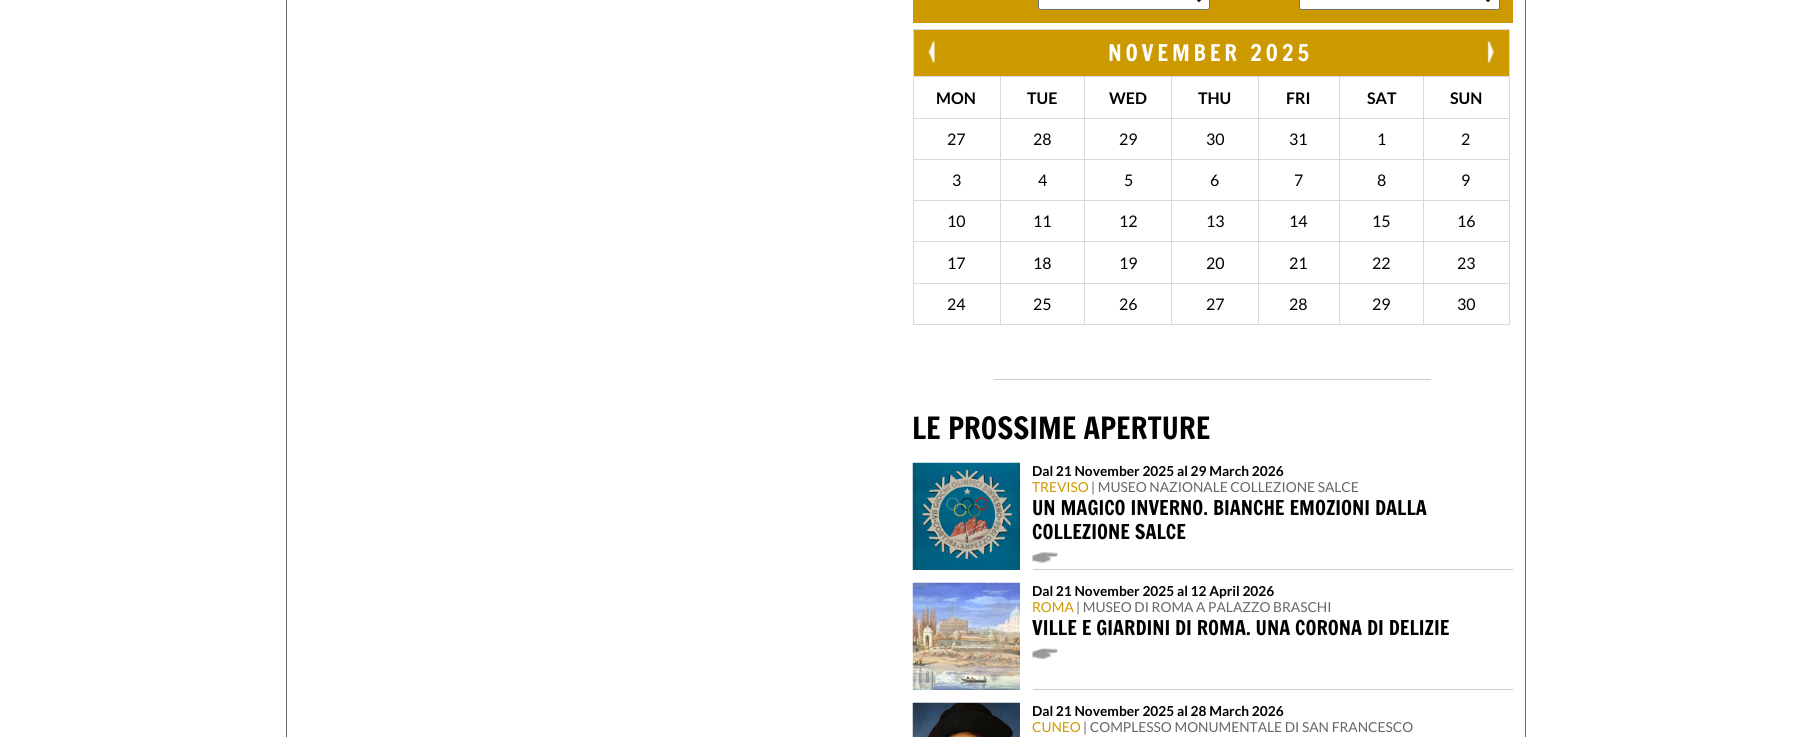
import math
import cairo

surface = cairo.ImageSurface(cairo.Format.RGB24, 1811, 737)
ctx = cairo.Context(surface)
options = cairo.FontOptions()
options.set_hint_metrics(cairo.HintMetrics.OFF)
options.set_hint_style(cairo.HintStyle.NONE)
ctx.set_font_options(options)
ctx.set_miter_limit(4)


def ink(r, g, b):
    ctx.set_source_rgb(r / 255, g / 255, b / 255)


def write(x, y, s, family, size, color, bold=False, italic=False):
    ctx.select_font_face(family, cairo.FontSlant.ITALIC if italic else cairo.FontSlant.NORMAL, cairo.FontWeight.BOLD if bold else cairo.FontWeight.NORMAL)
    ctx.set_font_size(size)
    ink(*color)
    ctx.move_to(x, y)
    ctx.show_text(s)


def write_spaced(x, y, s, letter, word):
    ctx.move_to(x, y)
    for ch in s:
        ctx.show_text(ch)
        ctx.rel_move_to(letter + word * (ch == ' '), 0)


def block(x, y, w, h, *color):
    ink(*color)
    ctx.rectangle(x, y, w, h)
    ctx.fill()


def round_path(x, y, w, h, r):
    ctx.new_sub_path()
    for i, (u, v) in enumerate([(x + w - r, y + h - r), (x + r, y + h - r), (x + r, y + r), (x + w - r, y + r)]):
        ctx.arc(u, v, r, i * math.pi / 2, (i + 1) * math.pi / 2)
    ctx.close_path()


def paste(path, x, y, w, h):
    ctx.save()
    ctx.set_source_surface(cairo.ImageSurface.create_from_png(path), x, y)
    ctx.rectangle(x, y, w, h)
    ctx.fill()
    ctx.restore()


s1 = dict(family="Lato", size=16, color=(0, 0, 0), bold=True)
s2 = dict(family="Lato", size=16, color=(0, 0, 0))
s3 = dict(family="Francois One", size=30, color=(0, 0, 0))
s4 = dict(family="Lato", size=13.75, color=(0, 0, 0), bold=True)
s5 = dict(family="Lato", size=13.75, color=(204, 153, 0))
s6 = dict(family="Lato", size=13.75, color=(102, 102, 102))
s7 = dict(family="Francois One", size=20, color=(0, 0, 0))

ink(255, 255, 255)
ctx.paint()
block(1525, 0, 1, 737, 102, 102, 102)
block(286, 0, 1, 737, 102, 102, 102)
block(913, 0, 600, 23, 204, 153, 0)
ink(255, 255, 255)
round_path(1038.5, -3.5, 171, 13, 2)
ctx.fill_preserve()
ink(118, 118, 118)
ctx.set_line_width(1)
ctx.stroke()
ctx.new_path()
ctx.move_to(1194, -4.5)
ctx.line_to(1199, 0.5)
ctx.line_to(1204, -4.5)
ink(0, 0, 0)
ctx.set_line_width(2.5)
ctx.stroke()
ink(255, 255, 255)
round_path(1299.5, -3.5, 200, 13, 2)
ctx.fill_preserve()
ink(118, 118, 118)
ctx.set_line_width(1)
ctx.stroke()
ctx.new_path()
ctx.move_to(1483, -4.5)
ctx.line_to(1488, 0.5)
ctx.line_to(1493, -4.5)
ink(0, 0, 0)
ctx.set_line_width(2.5)
ctx.stroke()
block(914, 30, 595, 46, 204, 153, 0)
paste("pic1.png", 928, 41, 7, 22)
paste("pic2.png", 1487, 41, 7, 22)
block(913, 29, 597, 1, 216, 216, 216)
block(1509, 29, 1, 296, 216, 216, 216)
block(913, 324, 597, 1, 216, 216, 216)
block(913, 29, 1, 296, 216, 216, 216)
ctx.select_font_face("Francois One")
ctx.set_font_size(22.5)
ink(255, 255, 255)
write_spaced(1108, 61, "NOVEMBER 2025", 3.75, 0)
block(1423, 76, 87, 1, 216, 216, 216)
block(1423, 118, 87, 1, 216, 216, 216)
block(1423, 159, 87, 1, 216, 216, 216)
block(1423, 200, 87, 1, 216, 216, 216)
block(1423, 241, 87, 1, 216, 216, 216)
block(1423, 283, 87, 1, 216, 216, 216)
block(1423, 283, 1, 42, 216, 216, 216)
block(1339, 283, 85, 1, 216, 216, 216)
block(1423, 241, 1, 43, 216, 216, 216)
block(1339, 241, 85, 1, 216, 216, 216)
block(1423, 200, 1, 43, 216, 216, 216)
block(1339, 200, 85, 1, 216, 216, 216)
block(1423, 159, 1, 42, 216, 216, 216)
block(1339, 159, 85, 1, 216, 216, 216)
block(1423, 118, 1, 42, 216, 216, 216)
block(1339, 118, 85, 1, 216, 216, 216)
block(1423, 76, 1, 43, 216, 216, 216)
block(1339, 76, 85, 1, 216, 216, 216)
block(1339, 283, 1, 42, 216, 216, 216)
block(1258, 283, 82, 1, 216, 216, 216)
block(1339, 241, 1, 43, 216, 216, 216)
block(1258, 241, 82, 1, 216, 216, 216)
block(1339, 200, 1, 43, 216, 216, 216)
block(1258, 200, 82, 1, 216, 216, 216)
block(1339, 159, 1, 42, 216, 216, 216)
block(1258, 159, 82, 1, 216, 216, 216)
block(1339, 118, 1, 42, 216, 216, 216)
block(1258, 118, 82, 1, 216, 216, 216)
block(1339, 76, 1, 43, 216, 216, 216)
block(1258, 76, 82, 1, 216, 216, 216)
block(1258, 283, 1, 42, 216, 216, 216)
block(1171, 283, 88, 1, 216, 216, 216)
block(1258, 241, 1, 43, 216, 216, 216)
block(1171, 241, 88, 1, 216, 216, 216)
block(1258, 200, 1, 43, 216, 216, 216)
block(1171, 200, 88, 1, 216, 216, 216)
block(1258, 159, 1, 42, 216, 216, 216)
block(1171, 159, 88, 1, 216, 216, 216)
block(1258, 118, 1, 42, 216, 216, 216)
block(1171, 118, 88, 1, 216, 216, 216)
block(1258, 76, 1, 43, 216, 216, 216)
block(1171, 76, 88, 1, 216, 216, 216)
block(1171, 283, 1, 42, 216, 216, 216)
block(1084, 283, 89, 1, 216, 216, 216)
block(1171, 241, 1, 43, 216, 216, 216)
block(1084, 241, 89, 1, 216, 216, 216)
block(1171, 200, 1, 43, 216, 216, 216)
block(1084, 200, 89, 1, 216, 216, 216)
block(1171, 159, 1, 42, 216, 216, 216)
block(1084, 159, 89, 1, 216, 216, 216)
block(1171, 118, 1, 42, 216, 216, 216)
block(1084, 118, 89, 1, 216, 216, 216)
block(1171, 76, 1, 43, 216, 216, 216)
block(1084, 76, 89, 1, 216, 216, 216)
block(1084, 283, 1, 42, 216, 216, 216)
block(1000, 283, 85, 1, 216, 216, 216)
block(1084, 241, 1, 43, 216, 216, 216)
block(1000, 241, 85, 1, 216, 216, 216)
block(1084, 200, 1, 43, 216, 216, 216)
block(1000, 200, 85, 1, 216, 216, 216)
block(1084, 159, 1, 42, 216, 216, 216)
block(1000, 159, 85, 1, 216, 216, 216)
block(1084, 118, 1, 42, 216, 216, 216)
block(1000, 118, 85, 1, 216, 216, 216)
block(1084, 76, 1, 43, 216, 216, 216)
block(1000, 76, 85, 1, 216, 216, 216)
block(1000, 283, 1, 42, 216, 216, 216)
block(913, 283, 88, 1, 216, 216, 216)
block(1000, 241, 1, 43, 216, 216, 216)
block(913, 241, 88, 1, 216, 216, 216)
block(1000, 200, 1, 43, 216, 216, 216)
block(913, 200, 88, 1, 216, 216, 216)
block(1000, 159, 1, 42, 216, 216, 216)
block(913, 159, 88, 1, 216, 216, 216)
block(1000, 118, 1, 42, 216, 216, 216)
block(913, 118, 88, 1, 216, 216, 216)
block(1000, 76, 1, 43, 216, 216, 216)
block(913, 76, 88, 1, 216, 216, 216)
write(936, 104, "MON", **s1)
write(1027, 104, "TUE", **s1)
write(1109, 104, "WED", **s1)
write(1198, 104, "THU", **s1)
write(1286, 104, "FRI", **s1)
write(1367, 104, "SAT", **s1)
write(1450, 104, "SUN", **s1)
write(947, 145, "27", **s2)
write(1033, 145, "28", **s2)
write(1119, 145, "29", **s2)
write(1206, 145, "30", **s2)
write(1289, 145, "31", **s2)
write(1377, 145, "1", **s2)
write(1461, 145, "2", **s2)
write(952, 186, "3", **s2)
write(1038, 186, "4", **s2)
write(1124, 186, "5", **s2)
write(1210, 186, "6", **s2)
write(1294, 186, "7", **s2)
write(1377, 186, "8", **s2)
write(1461, 186, "9", **s2)
write(947, 227, "10", **s2)
write(1033, 227, "11", **s2)
write(1119, 227, "12", **s2)
write(1206, 227, "13", **s2)
write(1289, 227, "14", **s2)
write(1372, 227, "15", **s2)
write(1457, 227, "16", **s2)
write(947, 269, "17", **s2)
write(1033, 269, "18", **s2)
write(1119, 269, "19", **s2)
write(1206, 269, "20", **s2)
write(1289, 269, "21", **s2)
write(1372, 269, "22", **s2)
write(1457, 269, "23", **s2)
write(947, 310, "24", **s2)
write(1033, 310, "25", **s2)
write(1119, 310, "26", **s2)
write(1206, 310, "27", **s2)
write(1289, 310, "28", **s2)
write(1372, 310, "29", **s2)
write(1457, 310, "30", **s2)
block(994, 379, 437, 1, 204, 204, 204)
write(912, 439, "LE PROSSIME APERTURE", **s3)
paste("pic3.png", 912, 462, 108, 108)
block(1033, 569, 480, 1, 204, 204, 204)
write(1032, 476, "Dal 21 November 2025 al 29 March 2026", **s4)
write(1032, 492, "TREVISO", **s5)
write(1091, 492, "| MUSEO NAZIONALE COLLEZIONE SALCE", **s6)
write(1032, 515, "UN MAGICO INVERNO. BIANCHE EMOZIONI DALLA", **s7)
write(1032, 539, "COLLEZIONE SALCE", **s7)
paste("pic4.png", 1032, 552, 26, 11)
paste("pic5.png", 912, 582, 108, 108)
block(1033, 689, 480, 1, 204, 204, 204)
write(1032, 596, "Dal 21 November 2025 al 12 April 2026", **s4)
write(1032, 612, "ROMA", **s5)
write(1076, 612, "| MUSEO DI ROMA A PALAZZO BRASCHI", **s6)
write(1032, 635, "VILLE E GIARDINI DI ROMA. UNA CORONA DI DELIZIE", **s7)
paste("pic6.png", 1032, 648, 26, 11)
paste("pic7.png", 912, 702, 108, 35)
write(1032, 716, "Dal 21 November 2025 al 28 March 2026", **s4)
write(1032, 732, "CUNEO", **s5)
write(1083, 732, "| COMPLESSO MONUMENTALE DI SAN FRANCESCO", **s6)
surface.write_to_png("screenshot.png")
